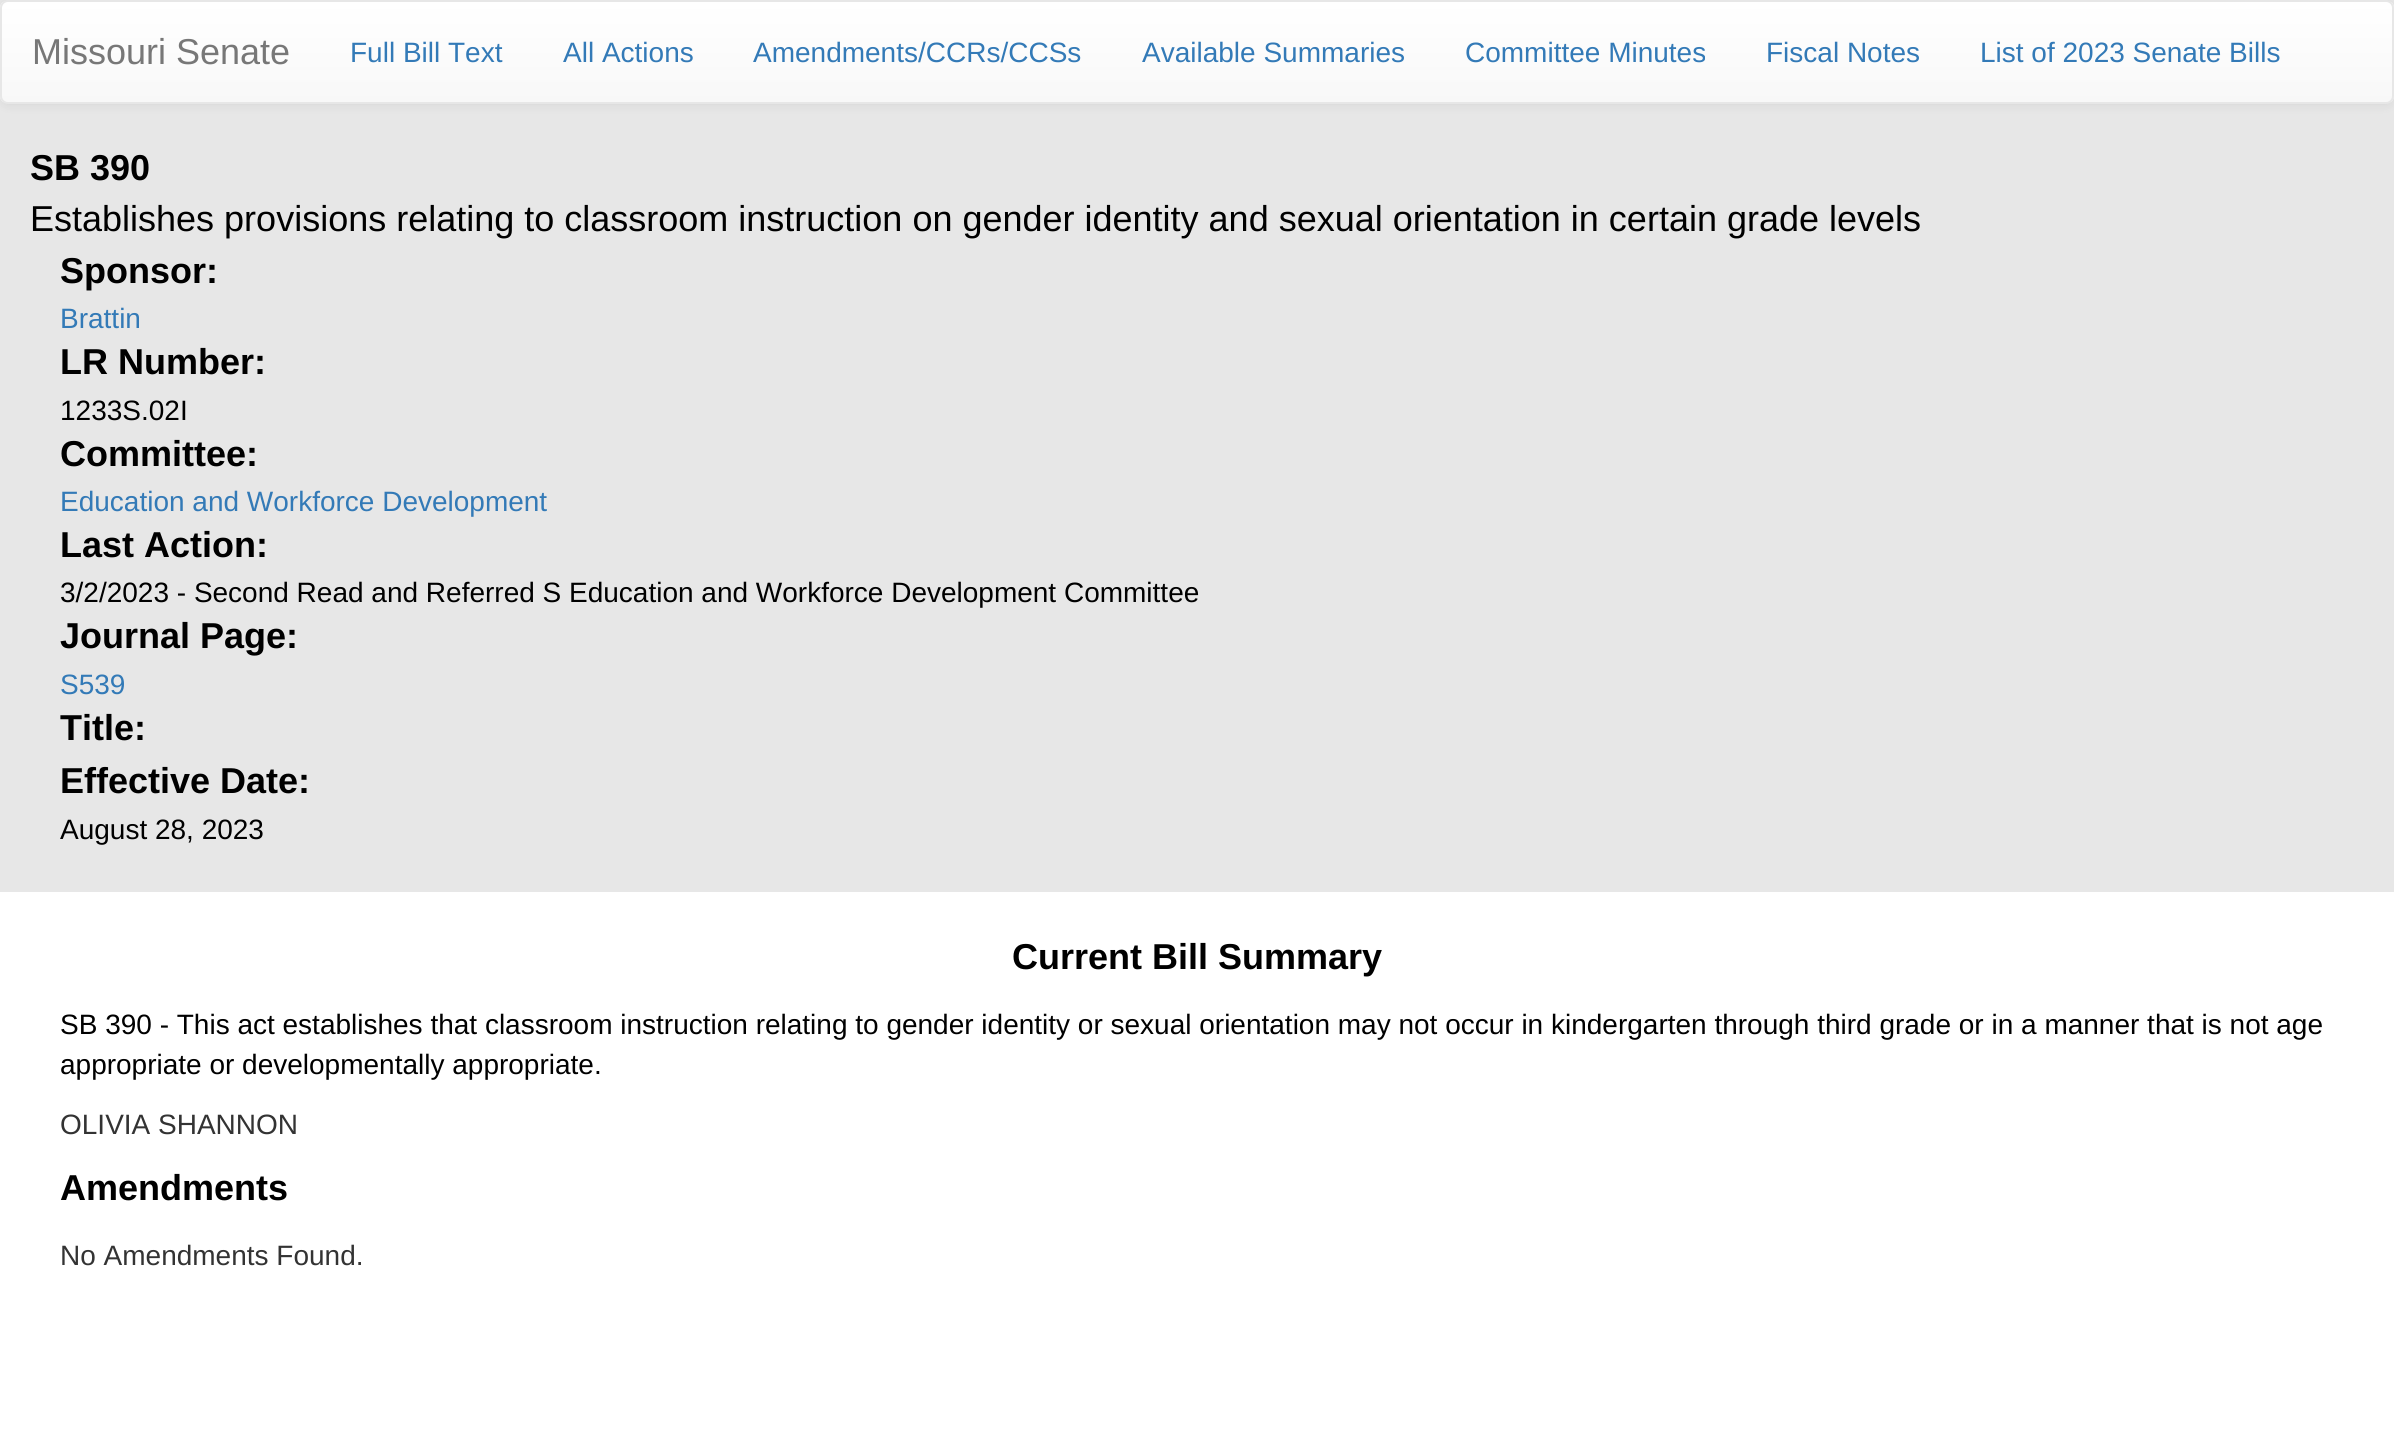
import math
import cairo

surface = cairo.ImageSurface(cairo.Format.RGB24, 2394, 1429)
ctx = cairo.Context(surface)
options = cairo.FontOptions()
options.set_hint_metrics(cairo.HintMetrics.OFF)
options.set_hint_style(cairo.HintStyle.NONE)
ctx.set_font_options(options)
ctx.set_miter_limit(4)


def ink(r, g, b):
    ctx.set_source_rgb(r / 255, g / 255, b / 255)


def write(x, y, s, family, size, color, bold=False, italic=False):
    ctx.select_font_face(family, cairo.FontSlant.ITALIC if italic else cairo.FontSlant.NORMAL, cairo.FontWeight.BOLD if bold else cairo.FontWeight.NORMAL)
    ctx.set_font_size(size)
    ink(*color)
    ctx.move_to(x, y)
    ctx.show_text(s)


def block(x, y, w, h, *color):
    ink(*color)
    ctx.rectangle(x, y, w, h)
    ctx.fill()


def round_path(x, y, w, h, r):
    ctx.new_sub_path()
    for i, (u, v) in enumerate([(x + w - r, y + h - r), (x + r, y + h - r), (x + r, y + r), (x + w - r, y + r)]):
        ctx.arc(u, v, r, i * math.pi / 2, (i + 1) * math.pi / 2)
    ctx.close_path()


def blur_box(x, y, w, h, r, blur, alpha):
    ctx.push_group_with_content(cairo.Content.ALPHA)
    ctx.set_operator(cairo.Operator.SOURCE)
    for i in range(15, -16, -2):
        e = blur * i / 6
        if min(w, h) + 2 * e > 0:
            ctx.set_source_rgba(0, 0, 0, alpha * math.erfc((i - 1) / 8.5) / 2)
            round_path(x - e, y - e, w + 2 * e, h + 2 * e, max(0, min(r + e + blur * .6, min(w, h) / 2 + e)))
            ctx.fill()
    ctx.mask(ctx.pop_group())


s1 = dict(family="Liberation Sans", size=36, color=(119, 119, 119))
s2 = dict(family="Liberation Sans", size=28, color=(51, 122, 183))
s3 = dict(family="Liberation Sans", size=36, color=(0, 0, 0), bold=True)
s4 = dict(family="Liberation Sans", size=36, color=(0, 0, 0))
s5 = dict(family="Liberation Sans", size=28, color=(0, 0, 0))
s6 = dict(family="Liberation Sans", size=28, color=(51, 51, 51))

ink(255, 255, 255)
ctx.paint()
block(0, 0, 2394, 892, 231, 231, 231)
ink(0, 0, 0)
blur_box(0, 2, 2394, 104, 8, 5, 0.07)
ctx.save()
round_path(0, 0, 2394, 104, 8)
ctx.clip()
gradient = cairo.LinearGradient(1197, 2, 1197, 102)
gradient.add_color_stop_rgba(0, 1, 1, 1, 1)
gradient.add_color_stop_rgba(1, 0.973, 0.973, 0.973, 1)
ctx.set_source(gradient)
ctx.rectangle(0, 2, 2394, 100)
ctx.fill()
ctx.restore()
round_path(1, 1, 2392, 102, 7)
ink(231, 231, 231)
ctx.stroke()
write(32, 64, "Missouri Senate", **s1)
write(350, 62, "Full Bill Text", **s2)
write(563, 62, "All Actions", **s2)
write(753, 62, "Amendments/CCRs/CCSs", **s2)
write(1142, 62, "Available Summaries", **s2)
write(1465, 62, "Committee Minutes", **s2)
write(1766, 62, "Fiscal Notes", **s2)
write(1980, 62, "List of 2023 Senate Bills", **s2)
write(30, 180, "SB 390", **s3)
write(30, 231, "Establishes provisions relating to classroom instruction on gender identity and sexual orientation in certain grade levels", **s4)
write(60, 283, "Sponsor:", **s3)
write(60, 328, "Brattin", **s2)
write(60, 374, "LR Number:", **s3)
write(60, 420, "1233S.02I", **s5)
write(60, 466, "Committee:", **s3)
write(60, 511, "Education and Workforce Development", **s2)
write(60, 557, "Last Action:", **s3)
write(60, 602, "3/2/2023 - Second Read and Referred S Education and Workforce Development Committee", **s5)
write(60, 648, "Journal Page:", **s3)
write(60, 694, "S539", **s2)
write(60, 740, "Title:", **s3)
write(60, 793, "Effective Date:", **s3)
write(60, 839, "August 28, 2023", **s5)
write(1012, 969, "Current Bill Summary", **s3)
write(60, 1034, "SB 390 - This act establishes that classroom instruction relating to gender identity or sexual orientation may not occur in kindergarten through third grade or in a manner that is not age", **s5)
write(60, 1074, "appropriate or developmentally appropriate.", **s5)
write(60, 1134, "OLIVIA SHANNON", **s6)
write(60, 1200, "Amendments", **s3)
write(60, 1265, "No Amendments Found.", **s6)
surface.write_to_png("screenshot.png")
